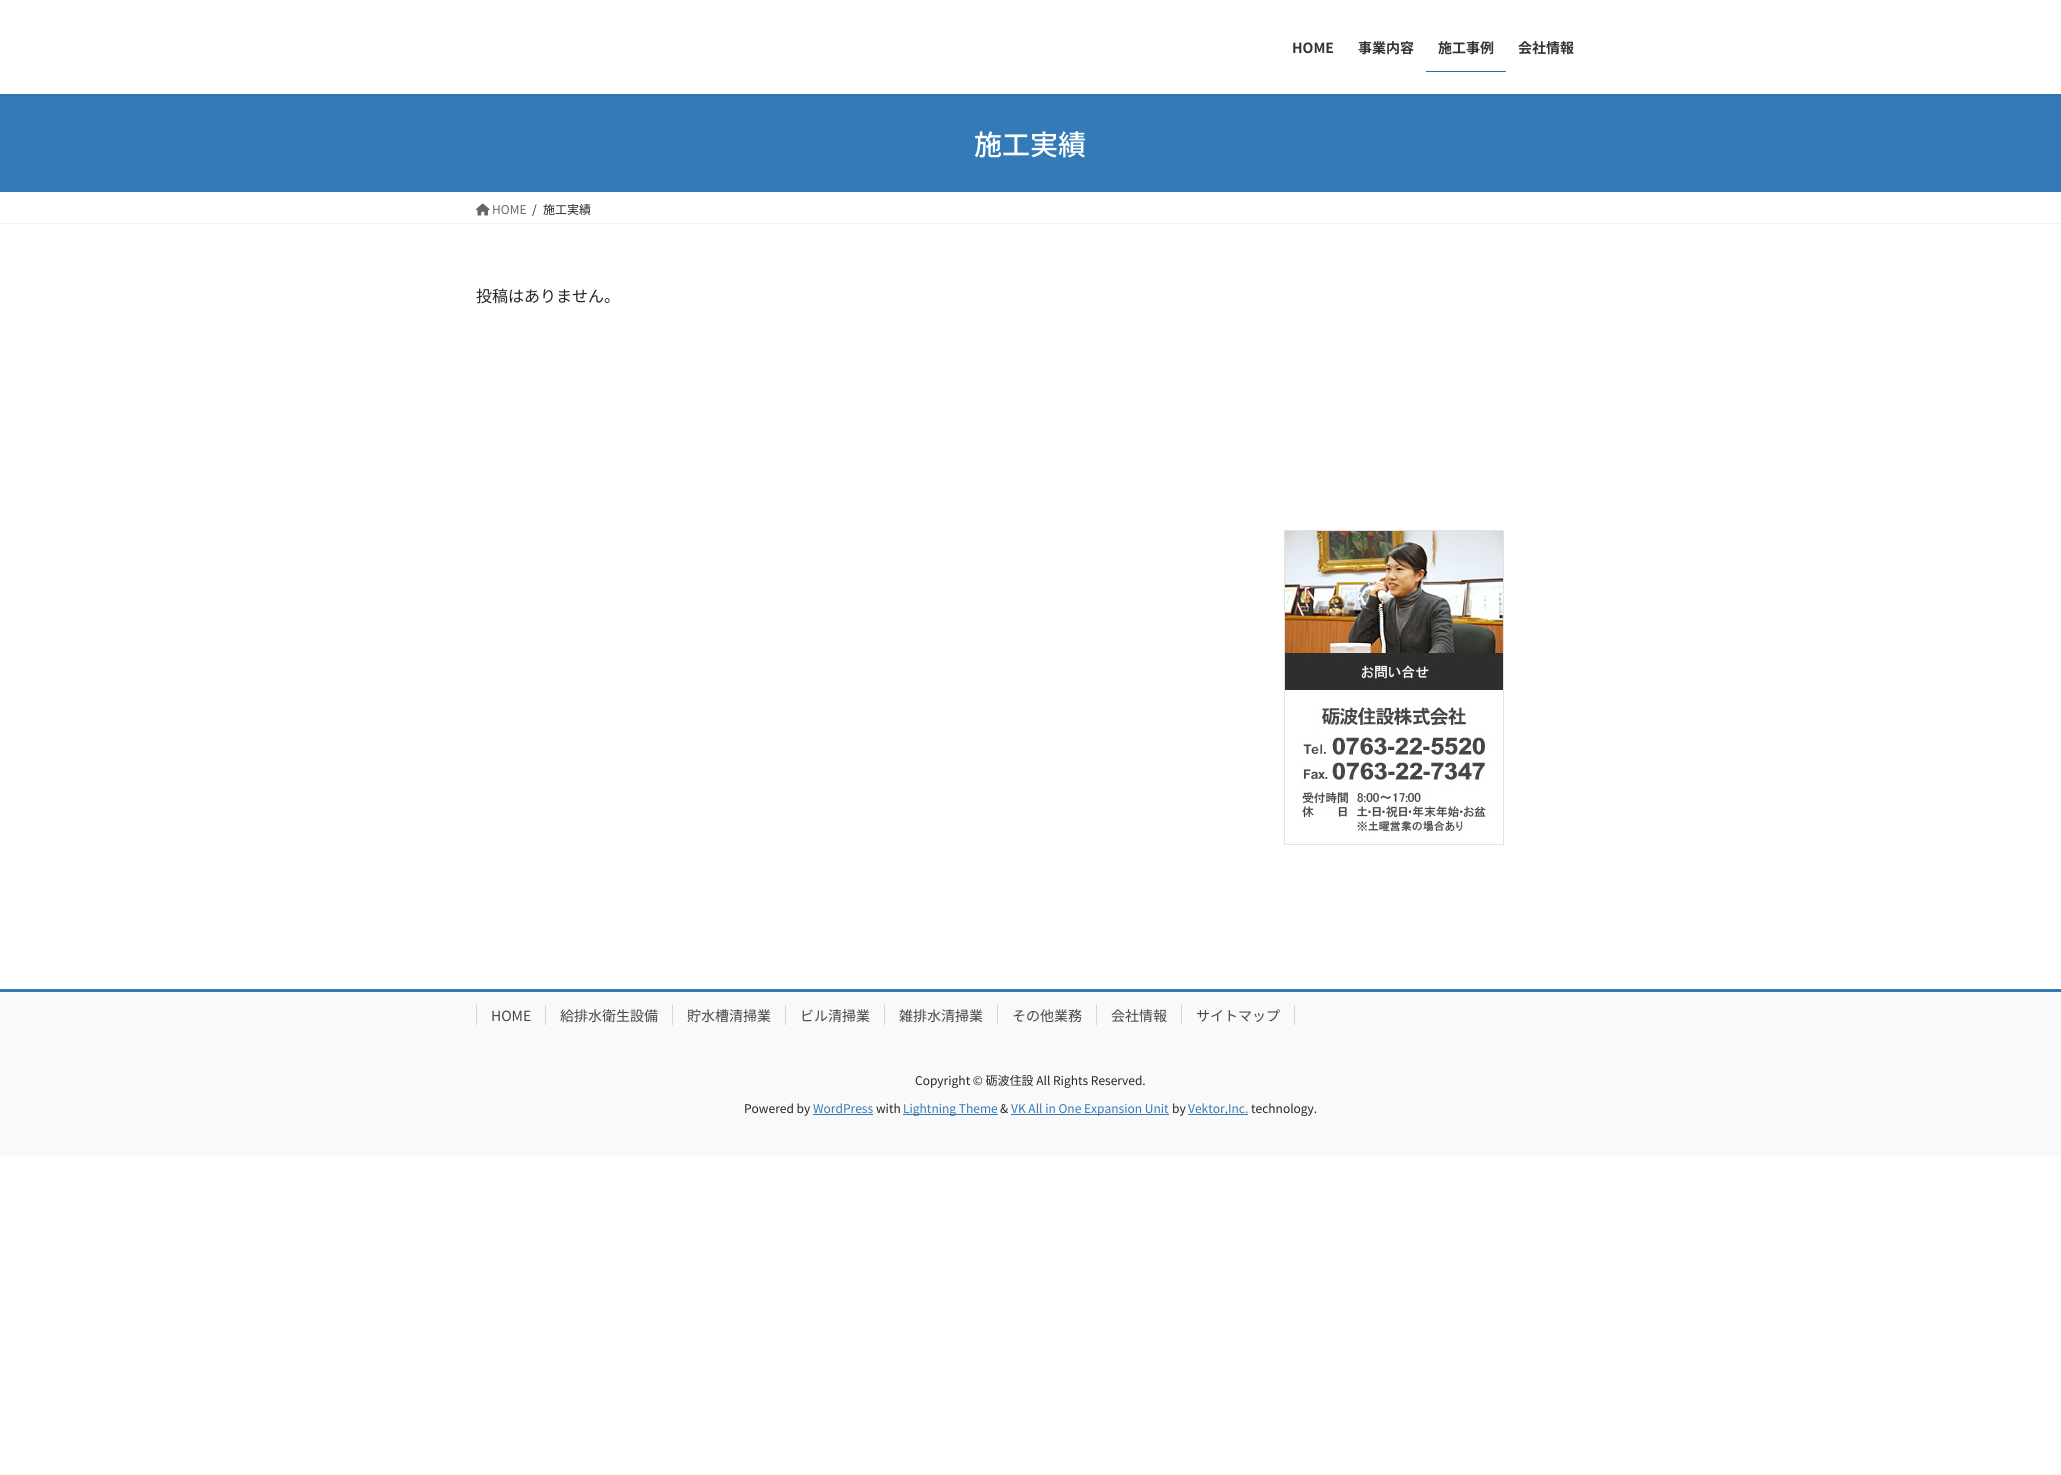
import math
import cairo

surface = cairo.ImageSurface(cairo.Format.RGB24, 2061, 1475)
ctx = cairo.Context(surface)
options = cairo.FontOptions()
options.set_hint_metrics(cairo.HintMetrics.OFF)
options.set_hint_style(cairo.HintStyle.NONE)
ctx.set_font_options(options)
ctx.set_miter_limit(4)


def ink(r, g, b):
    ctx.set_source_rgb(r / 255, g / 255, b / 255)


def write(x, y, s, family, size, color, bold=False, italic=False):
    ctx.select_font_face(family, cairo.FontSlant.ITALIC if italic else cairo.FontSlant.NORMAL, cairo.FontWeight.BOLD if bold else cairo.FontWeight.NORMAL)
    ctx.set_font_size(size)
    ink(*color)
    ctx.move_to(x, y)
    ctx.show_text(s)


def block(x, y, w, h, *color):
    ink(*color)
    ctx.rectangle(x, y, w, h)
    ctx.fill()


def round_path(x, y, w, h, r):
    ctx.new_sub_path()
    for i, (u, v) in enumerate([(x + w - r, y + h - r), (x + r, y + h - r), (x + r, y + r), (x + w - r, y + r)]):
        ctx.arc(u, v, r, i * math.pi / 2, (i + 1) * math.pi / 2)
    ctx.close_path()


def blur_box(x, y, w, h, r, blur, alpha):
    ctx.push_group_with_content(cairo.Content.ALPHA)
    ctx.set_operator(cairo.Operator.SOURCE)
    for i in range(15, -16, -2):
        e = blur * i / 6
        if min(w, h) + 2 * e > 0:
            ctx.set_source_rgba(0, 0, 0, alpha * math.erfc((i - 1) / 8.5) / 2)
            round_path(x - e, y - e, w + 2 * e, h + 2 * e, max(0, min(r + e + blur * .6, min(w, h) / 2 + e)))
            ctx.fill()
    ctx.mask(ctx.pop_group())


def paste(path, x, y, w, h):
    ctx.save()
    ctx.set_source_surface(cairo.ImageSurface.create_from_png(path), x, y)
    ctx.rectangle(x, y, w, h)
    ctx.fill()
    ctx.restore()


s1 = dict(family="Noto Sans JP", size=14, color=(51, 51, 51), bold=True)
s2 = dict(family="Noto Sans JP Medium", size=28, color=(255, 255, 255))
s3 = dict(family="Noto Sans JP", size=12, color=(102, 102, 102))
s4 = dict(family="Noto Sans JP", size=12, color=(33, 37, 41))
s5 = dict(family="Noto Sans JP", size=16, color=(33, 37, 41))
s6 = dict(family="Noto Sans JP", size=14, color=(70, 70, 70))
s7 = dict(family="Noto Sans JP", size=12, color=(51, 122, 183))

ink(255, 255, 255)
ctx.paint()
block(0, 94, 2061, 98, 51, 122, 183)
ctx.save()
ctx.rectangle(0, 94, 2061, 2)
ctx.clip()
ink(0, 0, 0)
blur_box(0, 1, 2061, 94, 0, 1.5, 0.1)
ctx.restore()
write(1292, 53, "HOME", **s1)
write(1358, 53, "事業内容", **s1)
write(1438, 53, "施工事例", **s1)
block(1426, 71, 80, 1, 46, 109, 164)
write(1518, 53, "会社情報", **s1)
write(974, 155, "施工実績", **s2)
block(0, 223, 2061, 1, 242, 242, 242)
paste("pic1.png", 476, 203, 14, 13)
write(492, 214, "HOME", **s3)
write(532, 214, "/", **s4)
write(543, 214, "施工実績", **s4)
write(476, 302, "投稿はありません。", **s5)
paste("pic2.png", 1284, 530, 220, 315)
block(0, 992, 2061, 165, 249, 249, 249)
block(0, 989, 2061, 3, 51, 122, 183)
write(491, 1021, "HOME", **s6)
block(476, 1005, 1, 20, 212, 212, 212)
write(560, 1021, "給排水衛生設備", **s6)
block(545, 1005, 1, 20, 212, 212, 212)
write(687, 1021, "貯水槽清掃業", **s6)
block(672, 1005, 1, 20, 212, 212, 212)
write(800, 1021, "ビル清掃業", **s6)
block(785, 1005, 1, 20, 212, 212, 212)
write(899, 1021, "雑排水清掃業", **s6)
block(884, 1005, 1, 20, 212, 212, 212)
write(1012, 1021, "その他業務", **s6)
block(997, 1005, 1, 20, 212, 212, 212)
write(1111, 1021, "会社情報", **s6)
block(1096, 1005, 1, 20, 212, 212, 212)
write(1196, 1021, "サイトマップ", **s6)
block(1294, 1005, 1, 20, 212, 212, 212)
block(1181, 1005, 1, 20, 212, 212, 212)
write(915, 1085, "Copyright © 砺波住設 All Rights Reserved.", **s4)
write(744, 1113, "Powered by", **s4)
write(813, 1113, "WordPress", **s7)
block(813, 1114, 60, 1, 51, 122, 183)
write(876, 1113, "with", **s4)
block(903, 1114, 95, 1, 51, 122, 183)
write(903, 1113, "Lightning Theme", **s7)
write(1000, 1113, "&", **s4)
block(1011, 1114, 158, 1, 51, 122, 183)
write(1011, 1113, "VK All in One Expansion Unit", **s7)
write(1172, 1113, "by", **s4)
block(1188, 1114, 60, 1, 51, 122, 183)
write(1188, 1113, "Vektor,Inc.", **s7)
write(1251, 1113, "technology.", **s4)
surface.write_to_png("screenshot.png")
